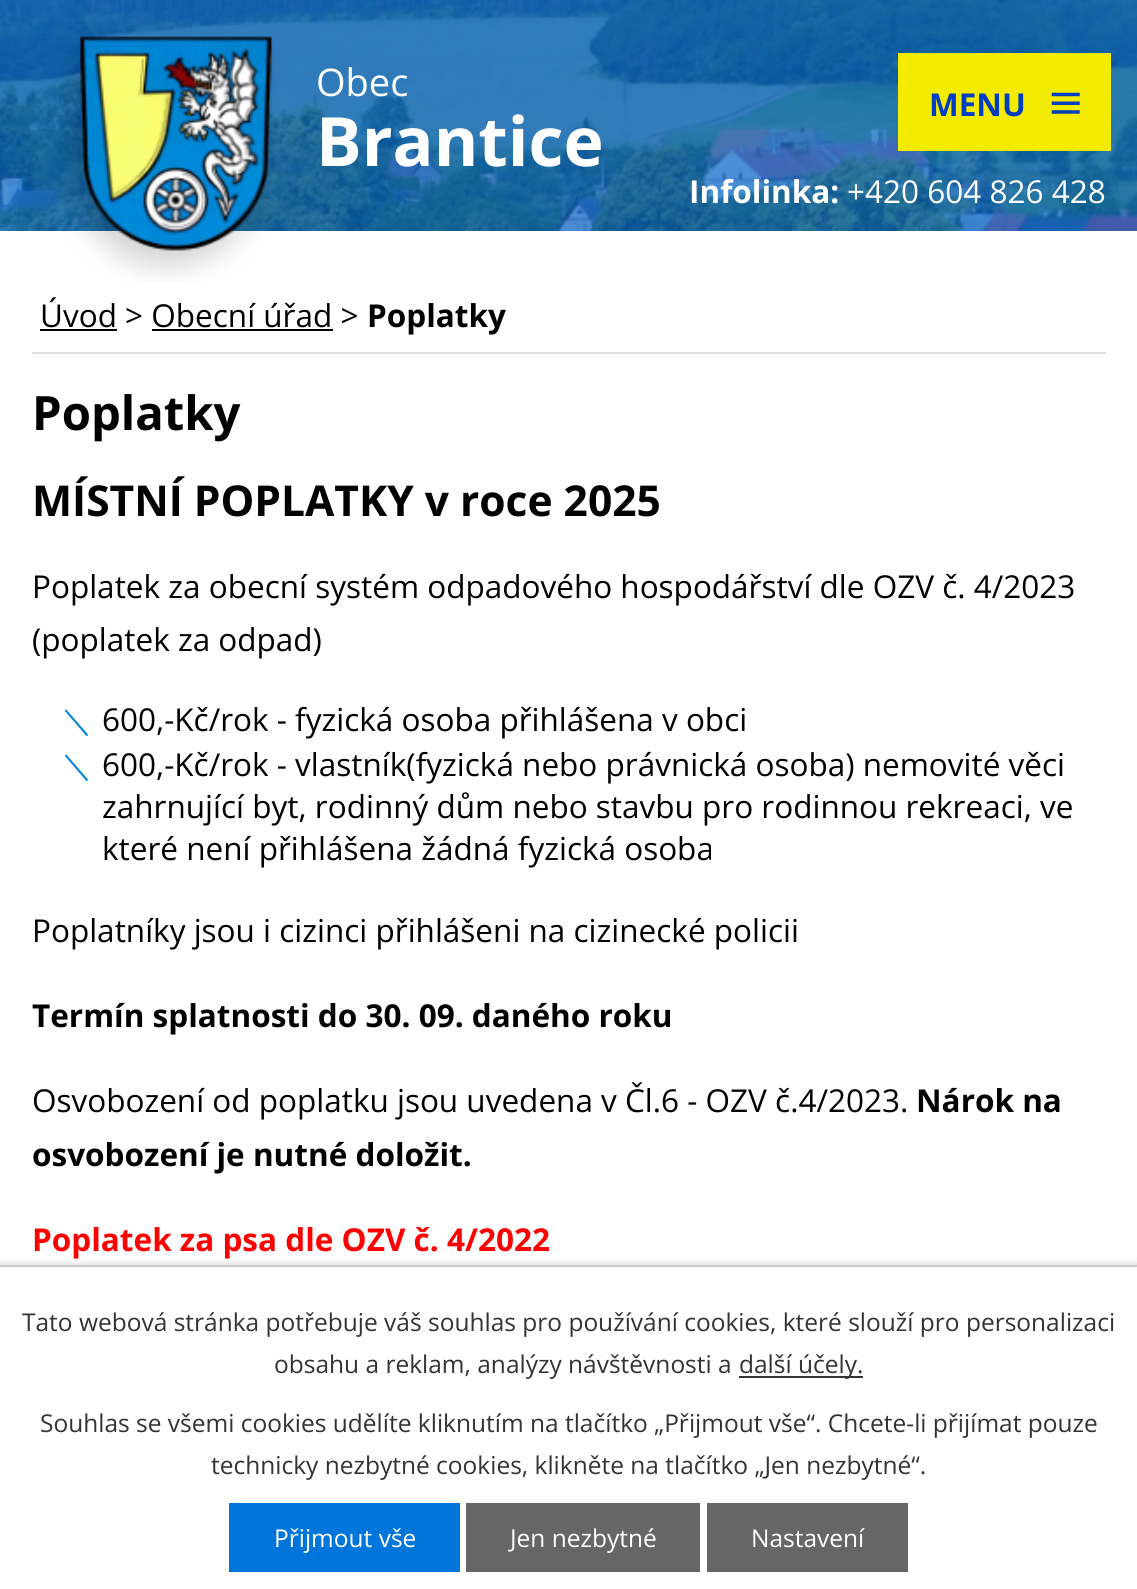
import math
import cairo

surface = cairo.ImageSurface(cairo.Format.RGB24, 1137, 1589)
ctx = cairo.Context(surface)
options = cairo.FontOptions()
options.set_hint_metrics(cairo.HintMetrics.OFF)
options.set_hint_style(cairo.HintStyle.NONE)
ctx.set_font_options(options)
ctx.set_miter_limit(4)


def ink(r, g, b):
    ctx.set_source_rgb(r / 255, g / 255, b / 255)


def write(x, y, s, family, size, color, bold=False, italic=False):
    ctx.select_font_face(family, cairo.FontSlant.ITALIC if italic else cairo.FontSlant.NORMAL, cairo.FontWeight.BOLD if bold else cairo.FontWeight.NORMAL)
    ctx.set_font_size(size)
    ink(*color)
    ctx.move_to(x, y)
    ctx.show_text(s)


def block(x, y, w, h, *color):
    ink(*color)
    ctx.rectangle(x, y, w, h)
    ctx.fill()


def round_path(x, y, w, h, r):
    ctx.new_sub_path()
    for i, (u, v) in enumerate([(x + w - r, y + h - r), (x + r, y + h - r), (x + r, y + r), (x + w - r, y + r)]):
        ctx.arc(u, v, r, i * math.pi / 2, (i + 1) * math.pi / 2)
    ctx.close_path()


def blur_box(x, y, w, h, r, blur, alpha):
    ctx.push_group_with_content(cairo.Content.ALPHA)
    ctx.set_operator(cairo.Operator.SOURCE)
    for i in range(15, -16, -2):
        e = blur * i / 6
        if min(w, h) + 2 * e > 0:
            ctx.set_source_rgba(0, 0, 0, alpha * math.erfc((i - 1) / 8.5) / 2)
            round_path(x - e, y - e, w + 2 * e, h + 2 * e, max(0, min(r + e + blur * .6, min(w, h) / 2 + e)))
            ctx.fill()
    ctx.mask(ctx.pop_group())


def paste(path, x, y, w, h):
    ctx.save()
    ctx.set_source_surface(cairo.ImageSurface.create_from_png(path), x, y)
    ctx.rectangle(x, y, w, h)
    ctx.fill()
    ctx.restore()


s1 = dict(family="Open Sans", size=38, color=(255, 255, 255))
s2 = dict(family="Open Sans", size=68, color=(255, 255, 255), bold=True)
s3 = dict(family="Open Sans", size=31.5, color=(255, 255, 255), bold=True)
s4 = dict(family="Open Sans", size=31.5, color=(255, 255, 255))
s5 = dict(family="Open Sans", size=31.5, color=(0, 61, 195), bold=True)
s6 = dict(family="Open Sans", size=31.5, color=(0, 0, 0))
s7 = dict(family="Open Sans", size=31.5, color=(0, 0, 0), bold=True)
s8 = dict(family="Open Sans", size=47.25, color=(0, 0, 0), bold=True)
s9 = dict(family="Open Sans", size=42.5, color=(0, 0, 0), bold=True)
s10 = dict(family="WenQuanYi Zen Hei Medium", size=31.5, color=(3, 135, 217))
s11 = dict(family="Open Sans", size=31.5, color=(255, 0, 0), bold=True)
s12 = dict(family="Open Sans", size=24.5, color=(51, 51, 51))
s13 = dict(family="Open Sans", size=24.5, color=(255, 255, 255))

ink(255, 255, 255)
ctx.paint()
paste("pic1.png", 0, 0, 1137, 231)
paste("pic2.png", 59, 36, 217, 245)
write(316, 96, "Obec", **s1)
write(316, 166, "Brantice", **s2)
write(689, 203, "Infolinka:", **s3)
write(847, 203, "+420 604 826 428", **s4)
block(898, 53, 213, 98, 243, 236, 0)
write(929, 116, "MENU", **s5)
paste("pic3.png", 1051, 92, 29, 22)
block(32, 352, 1074, 2, 222, 222, 222)
write(40, 327, "Úvod > Obecní úřad >", **s6)
block(40, 329, 77, 2, 0, 0, 0)
write(367, 327, "Poplatky", **s7)
block(152, 329, 181, 2, 0, 0, 0)
write(32, 430, "Poplatky", **s8)
write(32, 516, "MÍSTNÍ POPLATKY v roce 2025", **s9)
write(32, 598, "Poplatek za obecní systém odpadového hospodářství dle OZV č. 4/2023", **s6)
write(32, 651, "(poplatek za odpad)", **s6)
write(61, 731, "＼", **s10)
write(102, 731, "600,-Kč/rok - fyzická osoba přihlášena v obci", **s6)
write(61, 776, "＼", **s10)
write(102, 776, "600,-Kč/rok - vlastník(fyzická nebo právnická osoba) nemovité věci", **s6)
write(102, 818, "zahrnující byt, rodinný dům nebo stavbu pro rodinnou rekreaci, ve", **s6)
write(102, 860, "které není přihlášena žádná fyzická osoba", **s6)
write(32, 942, "Poplatníky jsou i cizinci přihlášeni na cizinecké policii", **s6)
write(32, 1027, "Termín splatnosti do 30. 09. daného roku", **s7)
write(32, 1112, "Osvobození od poplatku jsou uvedena v Čl.6 - OZV č.4/2023.", **s6)
write(916, 1112, "Nárok na", **s7)
write(32, 1166, "osvobození je nutné doložit.", **s7)
write(32, 1251, "Poplatek za psa dle OZV č. 4/2022", **s11)
ink(0, 0, 0)
blur_box(0, 1265, 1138, 324, 0, 4.5, 0.2)
block(0, 1267, 1137, 322, 255, 255, 255)
block(0, 1265, 1137, 2, 204, 204, 204)
write(22, 1331, "Tato webová stránka potřebuje váš souhlas pro používání cookies, které slouží pro personalizaci", **s12)
write(274, 1373, "obsahu a reklam, analýzy návštěvnosti a", **s12)
block(739, 1376, 124, 2, 51, 51, 51)
write(739, 1373, "další účely.", **s12)
write(40, 1432, "Souhlas se všemi cookies udělíte kliknutím na tlačítko „Přijmout vše“. Chcete-li přijímat pouze", **s12)
write(211, 1474, "technicky nezbytné cookies, klikněte na tlačítko „Jen nezbytné“.", **s12)
block(229, 1503, 231, 69, 0, 117, 218)
write(274, 1547, "Přijmout vše", **s13)
block(466, 1503, 234, 69, 102, 102, 102)
write(510, 1547, "Jen nezbytné", **s13)
block(707, 1503, 201, 69, 102, 102, 102)
write(751, 1547, "Nastavení", **s13)
surface.write_to_png("screenshot.png")
